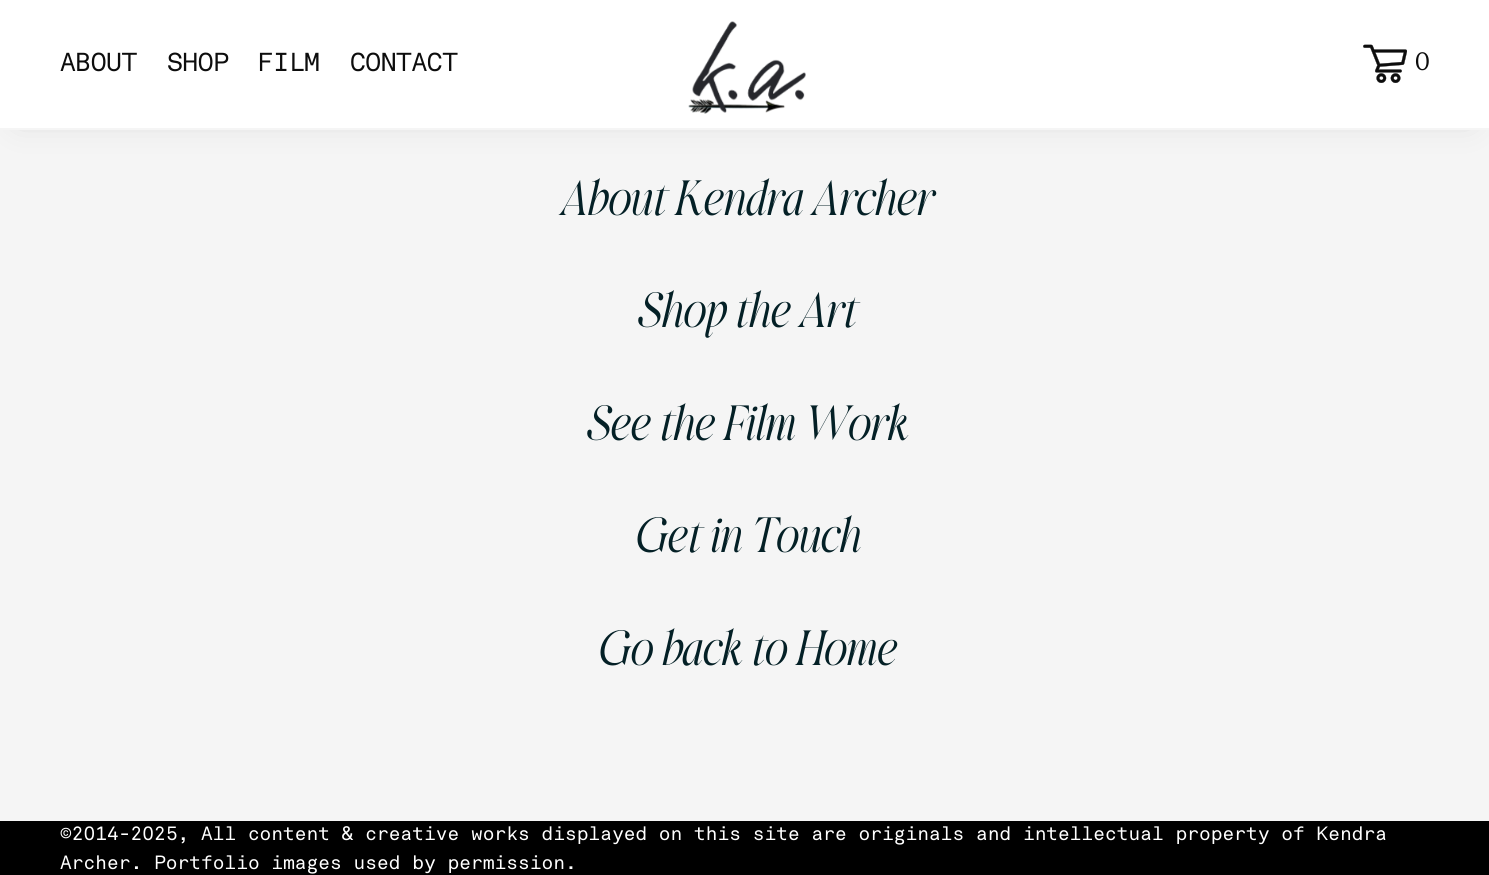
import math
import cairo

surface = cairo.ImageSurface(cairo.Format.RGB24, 1489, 875)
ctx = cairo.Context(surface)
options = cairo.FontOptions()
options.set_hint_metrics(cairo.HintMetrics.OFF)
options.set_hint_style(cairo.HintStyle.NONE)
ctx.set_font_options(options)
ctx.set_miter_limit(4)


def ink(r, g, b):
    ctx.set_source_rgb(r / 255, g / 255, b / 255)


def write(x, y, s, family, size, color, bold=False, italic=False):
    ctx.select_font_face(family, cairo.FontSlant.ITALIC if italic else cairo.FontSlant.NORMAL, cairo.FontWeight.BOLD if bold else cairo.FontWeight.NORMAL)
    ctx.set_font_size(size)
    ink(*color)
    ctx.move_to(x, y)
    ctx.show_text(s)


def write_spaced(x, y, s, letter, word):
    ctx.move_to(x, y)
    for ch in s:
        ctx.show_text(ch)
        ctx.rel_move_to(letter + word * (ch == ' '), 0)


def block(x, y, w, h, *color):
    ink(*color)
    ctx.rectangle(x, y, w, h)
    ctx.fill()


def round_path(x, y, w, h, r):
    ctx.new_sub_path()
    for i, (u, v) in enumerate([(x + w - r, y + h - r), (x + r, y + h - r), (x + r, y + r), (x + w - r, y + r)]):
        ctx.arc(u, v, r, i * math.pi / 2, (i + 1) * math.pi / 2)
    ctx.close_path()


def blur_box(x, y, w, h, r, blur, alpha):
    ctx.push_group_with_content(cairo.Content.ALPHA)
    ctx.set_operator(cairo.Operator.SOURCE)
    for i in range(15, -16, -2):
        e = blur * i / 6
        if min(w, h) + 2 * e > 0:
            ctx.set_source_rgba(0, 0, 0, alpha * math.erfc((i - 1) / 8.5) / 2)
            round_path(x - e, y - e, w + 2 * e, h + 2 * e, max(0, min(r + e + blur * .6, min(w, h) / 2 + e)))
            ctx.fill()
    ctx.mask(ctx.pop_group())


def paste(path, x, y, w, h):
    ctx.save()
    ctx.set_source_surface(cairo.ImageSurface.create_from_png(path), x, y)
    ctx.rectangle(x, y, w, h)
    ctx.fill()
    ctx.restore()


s1 = dict(family="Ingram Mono", size=19.25, color=(255, 255, 255))

ink(245, 245, 245)
ctx.paint()
ink(208, 208, 208)
blur_box(19, 28, 1451, 91, 0, 16, 1)
block(0, 0, 1489, 128, 255, 255, 255)
ctx.select_font_face("Ingram Mono")
ctx.set_font_size(26)
ink(13, 13, 13)
write_spaced(60, 71, "ABOUT", -0.5, 0)
write_spaced(167, 71, "SHOP", -0.5, 0)
write_spaced(258, 71, "FILM", -0.5, 0)
write_spaced(350, 71, "CONTACT", -0.5, 0)
paste("pic1.png", 688, 21, 118, 93)
paste("pic2.png", 1363, 44, 44, 39)
ctx.select_font_face("Newsreader")
write_spaced(1415, 70, "0", -0.5, 0)
block(0, 128, 1489, 2, 245, 245, 245)
ctx.select_font_face("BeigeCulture", cairo.FontSlant.ITALIC)
ctx.set_font_size(49.5)
ink(4, 32, 38)
write_spaced(558, 215, "About Kendra Archer", -1, 0)
write_spaced(635, 327, "Shop the Art", -1, 0)
write_spaced(584, 440, "See the Film Work", -1, 0)
write_spaced(632, 552, "Get in Touch", -1, 0)
write_spaced(595, 665, "Go back to Home", -1, 0)
block(0, 821, 1489, 54, 0, 0, 0)
write(60, 840, "©2014-2025, All content & creative works displayed on this site are originals and intellectual property of Kendra", **s1)
write(60, 869, "Archer. Portfolio images used by permission.", **s1)
surface.write_to_png("screenshot.png")
